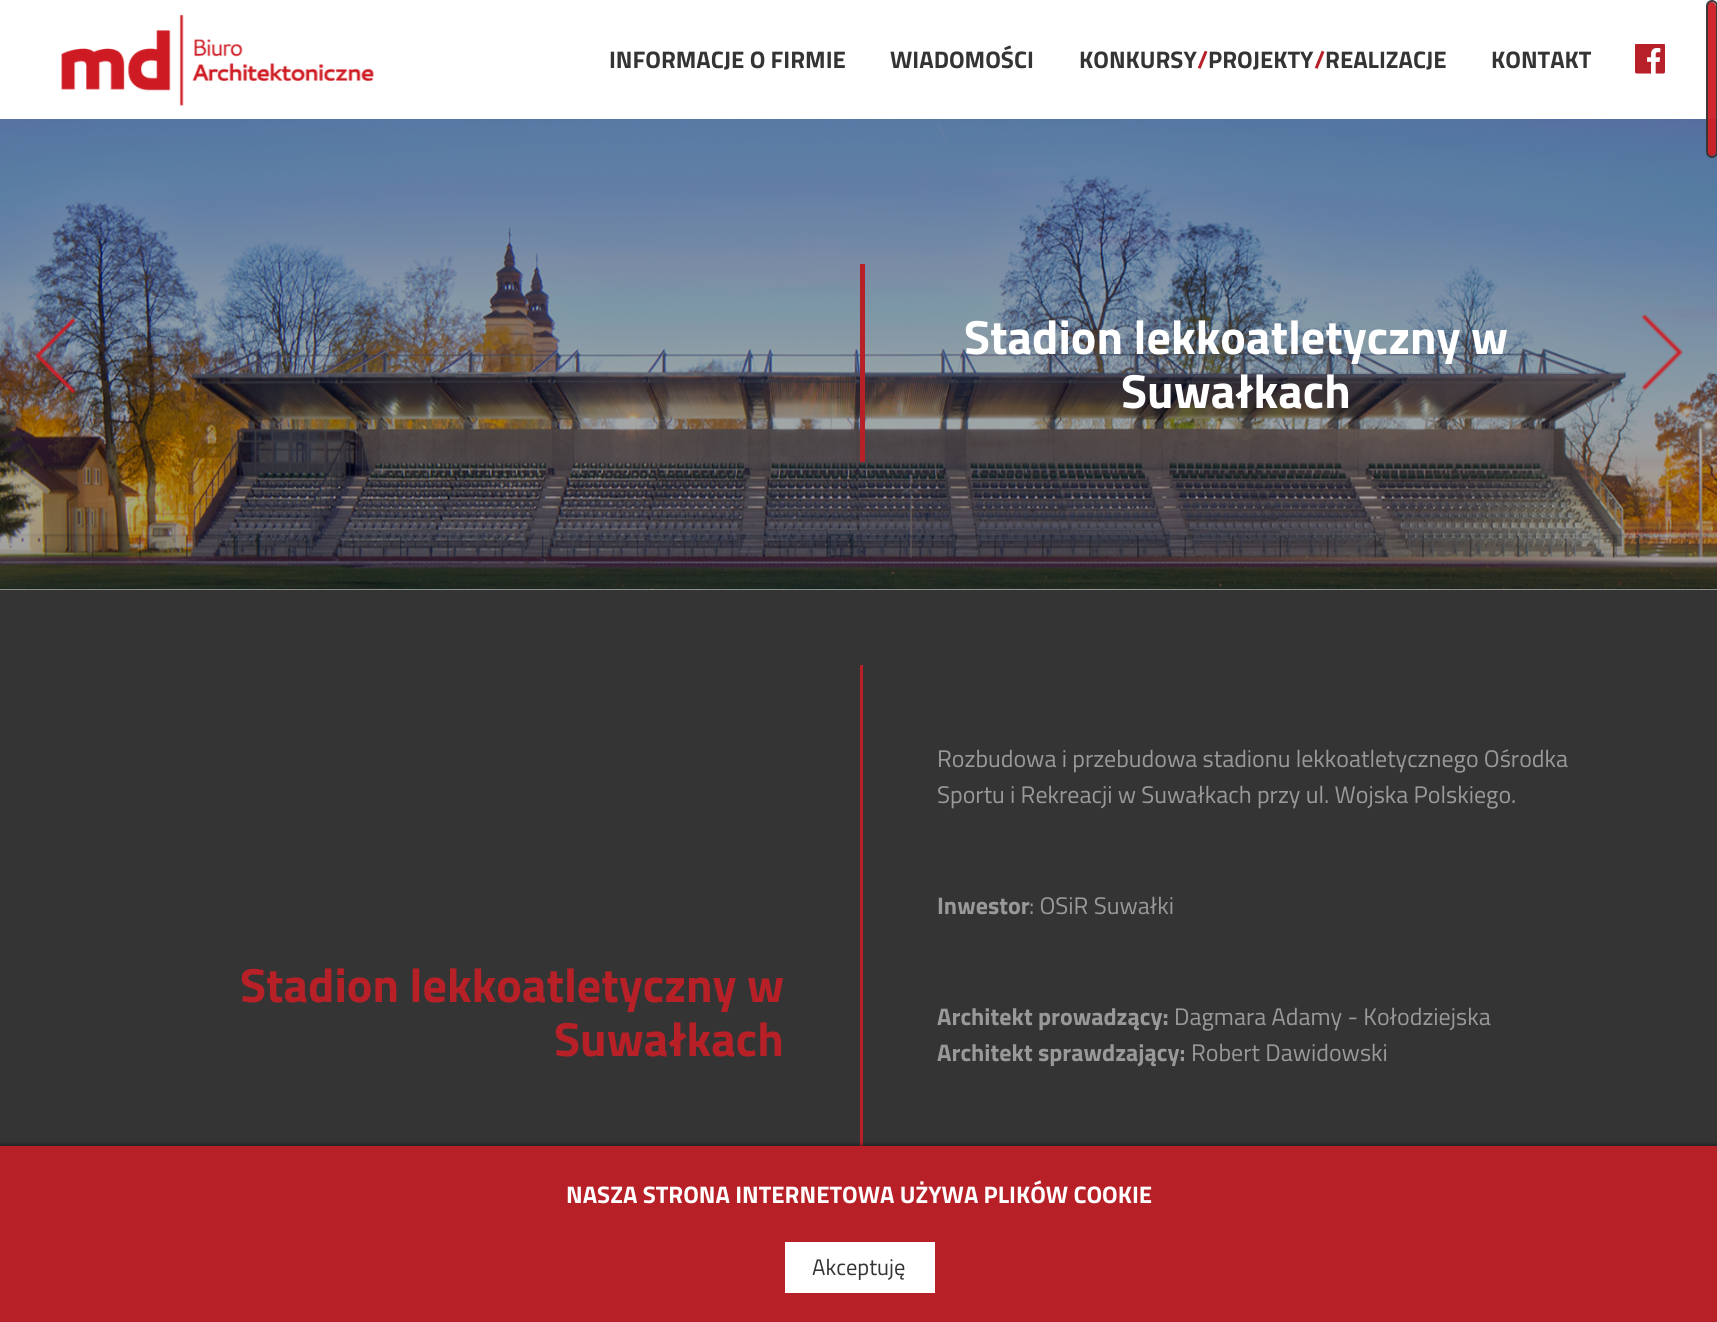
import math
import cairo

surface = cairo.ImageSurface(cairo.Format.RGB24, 1717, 1322)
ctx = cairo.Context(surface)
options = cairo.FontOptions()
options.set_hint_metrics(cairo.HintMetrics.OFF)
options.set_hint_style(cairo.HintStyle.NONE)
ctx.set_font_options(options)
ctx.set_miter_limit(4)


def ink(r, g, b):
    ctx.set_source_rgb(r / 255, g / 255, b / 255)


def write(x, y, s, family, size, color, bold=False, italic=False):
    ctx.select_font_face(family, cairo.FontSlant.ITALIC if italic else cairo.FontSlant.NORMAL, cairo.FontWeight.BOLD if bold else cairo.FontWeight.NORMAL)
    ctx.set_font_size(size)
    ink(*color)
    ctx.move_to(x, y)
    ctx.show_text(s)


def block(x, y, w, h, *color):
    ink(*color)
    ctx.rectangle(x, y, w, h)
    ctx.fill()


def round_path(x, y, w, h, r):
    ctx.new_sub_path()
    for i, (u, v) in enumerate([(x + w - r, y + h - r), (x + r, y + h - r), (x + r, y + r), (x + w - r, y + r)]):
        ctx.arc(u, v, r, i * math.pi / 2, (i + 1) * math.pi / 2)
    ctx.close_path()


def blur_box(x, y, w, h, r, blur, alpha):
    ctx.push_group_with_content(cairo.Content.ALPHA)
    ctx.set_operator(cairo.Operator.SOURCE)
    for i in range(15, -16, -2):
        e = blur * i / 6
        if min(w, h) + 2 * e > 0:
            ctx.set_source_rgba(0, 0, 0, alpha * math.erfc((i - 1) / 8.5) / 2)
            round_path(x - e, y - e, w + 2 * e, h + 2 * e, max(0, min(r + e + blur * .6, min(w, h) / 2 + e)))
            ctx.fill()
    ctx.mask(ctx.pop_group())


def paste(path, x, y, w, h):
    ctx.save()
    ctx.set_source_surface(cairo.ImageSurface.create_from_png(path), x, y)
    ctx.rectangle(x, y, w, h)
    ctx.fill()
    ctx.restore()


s1 = dict(family="Titillium Web", size=24, color=(52, 52, 52), bold=True)
s2 = dict(family="Titillium Web", size=24, color=(184, 32, 39), bold=True)
s3 = dict(family="Titillium Web", size=48, color=(255, 255, 255), bold=True)
s4 = dict(family="Titillium Web", size=48, color=(184, 32, 39), bold=True)
s5 = dict(family="Titillium Web", size=24, color=(153, 153, 153))
s6 = dict(family="Titillium Web", size=24, color=(153, 153, 153), bold=True)
s7 = dict(family="Titillium Web", size=24, color=(255, 255, 255), bold=True)
s8 = dict(family="Titillium Web", size=22.5, color=(52, 52, 52))

ink(255, 255, 255)
ctx.paint()
paste("pic1.png", 61, 14, 313, 92)
write(609, 68, "INFORMACJE O FIRMIE", **s1)
write(890, 68, "WIADOMOŚCI", **s1)
write(1079, 68, "KONKURSY", **s1)
write(1197, 68, "/", **s2)
write(1208, 68, "PROJEKTY", **s1)
write(1314, 68, "/", **s2)
write(1325, 68, "REALIZACJE", **s1)
write(1491, 68, "KONTAKT", **s1)
paste("pic2.png", 1635, 44, 30, 30)
paste("pic3.png", 0, 119, 1717, 471)
paste("pic4.png", 34, 317, 42, 77)
paste("pic5.png", 1641, 314, 43, 77)
block(860, 264, 5, 198, 184, 32, 39)
write(964, 354, "Stadion lekkoatletyczny w", **s3)
write(1121, 408, "Suwałkach", **s3)
block(0, 590, 1717, 556, 52, 52, 52)
write(240, 1002, "Stadion lekkoatletyczny w", **s4)
write(554, 1056, "Suwałkach", **s4)
block(860, 665, 3, 481, 184, 32, 39)
write(937, 767, "Rozbudowa i przebudowa stadionu lekkoatletycznego Ośrodka", **s5)
write(937, 803, "Sportu i Rekreacji w Suwałkach przy ul. Wojska Polskiego.", **s5)
write(937, 914, "Inwestor", **s6)
write(1029, 914, ": OSiR Suwałki", **s5)
write(937, 1025, "Architekt prowadzący:", **s6)
write(1174, 1025, "Dagmara Adamy - Kołodziejska", **s5)
write(937, 1061, "Architekt sprawdzający:", **s6)
write(1191, 1061, "Robert Dawidowski", **s5)
ctx.set_source_rgba(0.804, 0.125, 0.153, 0.96)
round_path(1707, 2, 9, 154, 4.5)
ctx.fill()
round_path(1707, 1, 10, 156, 5)
ctx.set_source_rgba(0.204, 0.204, 0.204, 0.96)
ctx.stroke()
ink(0, 0, 0)
blur_box(0, 1145, 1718, 177, 0, 2, 0.5)
block(0, 1146, 1717, 176, 184, 32, 39)
write(566, 1203, "NASZA STRONA INTERNETOWA UŻYWA PLIKÓW COOKIE", **s7)
block(785, 1242, 150, 51, 255, 255, 255)
write(812, 1275, "Akceptuję", **s8)
surface.write_to_png("screenshot.png")
